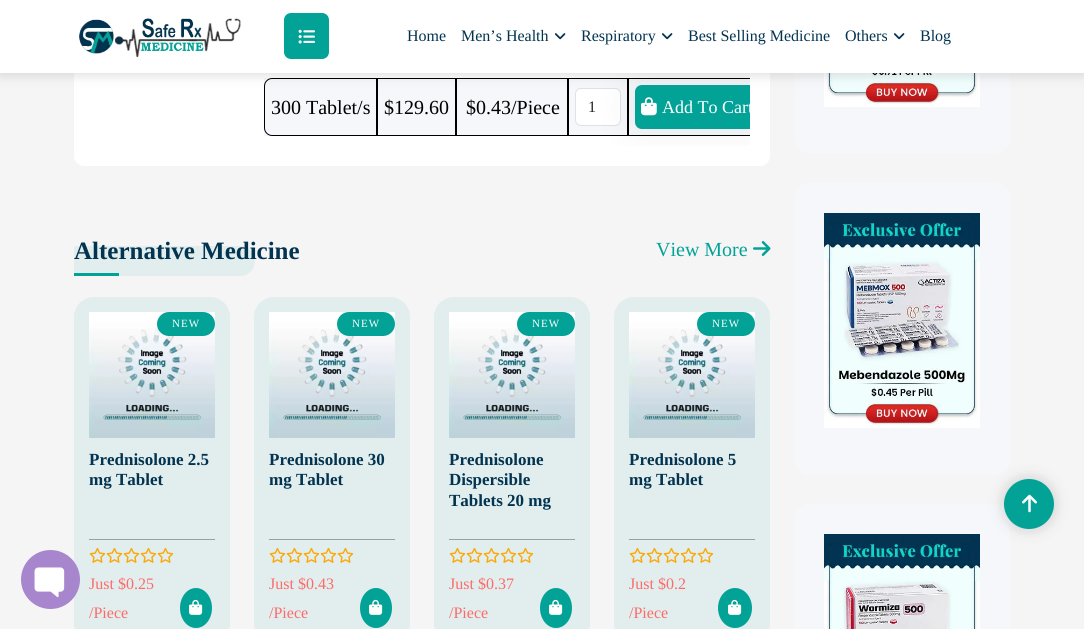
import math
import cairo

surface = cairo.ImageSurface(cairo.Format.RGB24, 1084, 629)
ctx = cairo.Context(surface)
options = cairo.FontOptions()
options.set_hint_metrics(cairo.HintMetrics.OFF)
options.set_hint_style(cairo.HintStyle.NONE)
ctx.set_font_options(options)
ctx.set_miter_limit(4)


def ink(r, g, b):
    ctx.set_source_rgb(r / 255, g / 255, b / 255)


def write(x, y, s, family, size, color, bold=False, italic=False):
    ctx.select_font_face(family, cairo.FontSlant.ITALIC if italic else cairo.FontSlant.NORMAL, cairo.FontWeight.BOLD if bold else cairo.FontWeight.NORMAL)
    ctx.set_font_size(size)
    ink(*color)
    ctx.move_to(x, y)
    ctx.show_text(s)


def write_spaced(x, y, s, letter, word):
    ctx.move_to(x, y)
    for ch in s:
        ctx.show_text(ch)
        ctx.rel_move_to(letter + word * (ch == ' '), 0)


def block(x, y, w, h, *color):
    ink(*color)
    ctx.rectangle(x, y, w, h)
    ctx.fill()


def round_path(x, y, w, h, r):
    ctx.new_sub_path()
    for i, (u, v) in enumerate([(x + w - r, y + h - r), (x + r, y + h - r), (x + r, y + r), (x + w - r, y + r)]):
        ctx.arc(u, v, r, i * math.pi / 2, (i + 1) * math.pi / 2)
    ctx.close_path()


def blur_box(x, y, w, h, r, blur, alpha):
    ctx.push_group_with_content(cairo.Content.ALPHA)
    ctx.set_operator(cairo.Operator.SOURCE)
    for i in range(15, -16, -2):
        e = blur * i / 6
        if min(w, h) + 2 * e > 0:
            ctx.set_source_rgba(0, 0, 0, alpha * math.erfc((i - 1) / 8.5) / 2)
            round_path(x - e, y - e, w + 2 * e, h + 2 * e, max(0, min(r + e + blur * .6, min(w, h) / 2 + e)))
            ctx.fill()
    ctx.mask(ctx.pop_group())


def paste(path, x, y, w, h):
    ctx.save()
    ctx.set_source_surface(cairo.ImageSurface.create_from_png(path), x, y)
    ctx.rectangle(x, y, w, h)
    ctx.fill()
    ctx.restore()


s1 = dict(family="Liberation Serif", size=16, color=(2, 51, 80))
s2 = dict(family="Liberation Serif", size=20, color=(0, 0, 0))
s3 = dict(family="Liberation Serif", size=16, color=(33, 37, 41))
s4 = dict(family="Liberation Serif", size=18, color=(255, 255, 255))
s5 = dict(family="Liberation Serif", size=25, color=(2, 51, 80), bold=True)
s6 = dict(family="Liberation Serif", size=20, color=(3, 162, 151))
s7 = dict(family="Liberation Serif", size=17, color=(2, 51, 80), bold=True)
s8 = dict(family="Liberation Serif", size=16, color=(253, 106, 106))

ink(245, 245, 245)
ctx.paint()
ink(255, 255, 255)
round_path(74, -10, 696, 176, 10)
ctx.fill()
block(264, 78, 486, 58, 245, 247, 250)
ctx.new_path()
ctx.move_to(272, 78.5)
ctx.line_to(376.5, 78.5)
ctx.line_to(376.5, 135.5)
ctx.line_to(272, 135.5)
ctx.curve_to(268, 135.5, 264.5, 132, 264.5, 128)
ctx.line_to(264.5, 86)
ctx.curve_to(264.5, 82, 268, 78.5, 272, 78.5)
ctx.close_path()
ink(0, 0, 0)
ctx.set_line_width(1)
ctx.stroke()
ctx.rectangle(377.5, 78.5, 78, 57)
ctx.stroke()
ctx.rectangle(456.5, 78.5, 111, 57)
ctx.stroke()
ctx.rectangle(568.5, 78.5, 59, 57)
ctx.stroke()
ink(255, 255, 255)
round_path(575.5, 88.5, 45, 37, 5.5)
ctx.fill_preserve()
ink(222, 226, 230)
ctx.stroke()
ctx.save()
ctx.rectangle(264, 0, 486, 146)
ctx.clip()
ctx.new_path()
ctx.move_to(628.5, 78.5)
ctx.line_to(758, 78.5)
ctx.curve_to(762, 78.5, 765.5, 82, 765.5, 86)
ctx.line_to(765.5, 128)
ctx.curve_to(765.5, 132, 762, 135.5, 758, 135.5)
ctx.line_to(628.5, 135.5)
ctx.close_path()
ink(0, 0, 0)
ctx.stroke()
ctx.restore()
ink(245, 247, 250)
round_path(794, -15, 216, 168, 15)
ctx.fill()
paste("pic11.png", 824, 73, 156, 34)
round_path(794, 183, 216, 291, 15)
ctx.fill()
ctx.save()
ctx.rectangle(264, 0, 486, 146)
ctx.clip()
ink(0, 0, 0)
blur_box(630, 80, 134, 54, 12, 20, 0.05)
ctx.restore()
ink(3, 162, 151)
ctx.new_path()
ctx.move_to(642, 85)
ctx.line_to(750, 85)
ctx.line_to(750, 129)
ctx.line_to(642, 129)
ctx.curve_to(638, 129, 635, 126, 635, 122)
ctx.line_to(635, 92)
ctx.curve_to(635, 88, 638, 85, 642, 85)
ctx.close_path()
ctx.fill()
ink(0, 0, 0)
blur_box(0, 0, 1084, 73, 0, 7.5, 0.17)
block(0, 0, 1084, 73, 255, 255, 255)
paste("pic1.png", 79, 18, 162, 39)
ink(3, 162, 151)
round_path(284, 13, 45, 46, 7)
ctx.fill()
paste("pic2.png", 298, 29, 17, 15)
write(407, 41, "Home", **s1)
write(461, 41, "Men’s Health", **s1)
paste("pic3.png", 555, 33, 11, 7)
write(581, 41, "Respiratory", **s1)
paste("pic3.png", 662, 33, 11, 7)
write(688, 41, "Best Selling Medicine", **s1)
write(845, 41, "Others", **s1)
paste("pic3.png", 894, 33, 11, 7)
write(920, 41, "Blog", **s1)
write(271, 114, "300 Tablet/s", **s2)
write(384, 114, "$129.60", **s2)
write(466, 114, "$0.43/Piece", **s2)
write(588, 112, "1", **s3)
paste("pic4.png", 641, 97, 16, 19)
ctx.save()
ctx.rectangle(264, 0, 486, 146)
ctx.clip()
write(662, 113, "Add To Cart", **s4)
ctx.restore()
ink(226, 238, 237)
ctx.new_path()
ctx.move_to(74, 246)
ctx.line_to(240, 246)
ctx.curve_to(248.5, 246, 255, 252.5, 255, 261)
ctx.curve_to(255, 269.5, 248.5, 276, 240, 276)
ctx.line_to(74, 276)
ctx.close_path()
ctx.fill()
write(74, 259, "Alternative Medicine", **s5)
block(74, 273, 45, 3, 3, 162, 151)
write(656, 256, "View More", **s6)
paste("pic5.png", 753, 241, 18, 15)
ink(226, 238, 237)
round_path(74, 297, 156, 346, 20)
ctx.fill()
paste("pic6.png", 89, 312, 126, 126)
ink(3, 162, 151)
round_path(157, 312, 58, 24, 12)
ctx.fill()
ctx.set_font_size(11)
ink(255, 255, 255)
write_spaced(172, 327, "NEW", 1, 0)
block(89, 539, 126, 1, 157, 157, 157)
write(89, 465, "Prednisolone 2.5", **s7)
write(89, 485, "mg Tablet", **s7)
paste("pic7.png", 89, 547, 17, 16)
paste("pic7.png", 106, 547, 17, 16)
paste("pic7.png", 123, 547, 17, 16)
paste("pic7.png", 140, 547, 17, 16)
paste("pic7.png", 157, 547, 17, 16)
write(89, 589, "Just $0.25", **s8)
write(89, 618, "/Piece", **s8)
ink(3, 162, 151)
ctx.new_path()
ctx.move_to(196, 588)
ctx.curve_to(205, 588, 212, 597, 212, 608)
ctx.curve_to(212, 619, 205, 628, 196, 628)
ctx.curve_to(187, 628, 180, 619, 180, 608)
ctx.curve_to(180, 597, 187, 588, 196, 588)
ctx.close_path()
ctx.fill()
paste("pic8.png", 189, 599, 14, 16)
ink(226, 238, 237)
round_path(254, 297, 156, 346, 20)
ctx.fill()
paste("pic6.png", 269, 312, 126, 126)
ink(3, 162, 151)
round_path(337, 312, 58, 24, 12)
ctx.fill()
ctx.set_font_size(11)
ink(255, 255, 255)
write_spaced(352, 327, "NEW", 1, 0)
block(269, 539, 126, 1, 157, 157, 157)
write(269, 465, "Prednisolone 30", **s7)
write(269, 485, "mg Tablet", **s7)
paste("pic7.png", 269, 547, 17, 16)
paste("pic7.png", 286, 547, 17, 16)
paste("pic7.png", 303, 547, 17, 16)
paste("pic7.png", 320, 547, 17, 16)
paste("pic7.png", 337, 547, 17, 16)
write(269, 589, "Just $0.43", **s8)
write(269, 618, "/Piece", **s8)
ink(3, 162, 151)
ctx.new_path()
ctx.move_to(376, 588)
ctx.curve_to(385, 588, 392, 597, 392, 608)
ctx.curve_to(392, 619, 385, 628, 376, 628)
ctx.curve_to(367, 628, 360, 619, 360, 608)
ctx.curve_to(360, 597, 367, 588, 376, 588)
ctx.close_path()
ctx.fill()
paste("pic8.png", 369, 599, 14, 16)
ink(226, 238, 237)
round_path(434, 297, 156, 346, 20)
ctx.fill()
paste("pic9.png", 449, 312, 126, 126)
ink(3, 162, 151)
round_path(517, 312, 58, 24, 12)
ctx.fill()
ctx.set_font_size(11)
ink(255, 255, 255)
write_spaced(532, 327, "NEW", 1, 0)
block(449, 539, 126, 1, 157, 157, 157)
write(449, 465, "Prednisolone", **s7)
write(449, 485, "Dispersible", **s7)
write(449, 506, "Tablets 20 mg", **s7)
paste("pic7.png", 449, 547, 17, 16)
paste("pic7.png", 466, 547, 17, 16)
paste("pic7.png", 483, 547, 17, 16)
paste("pic7.png", 500, 547, 17, 16)
paste("pic7.png", 517, 547, 17, 16)
write(449, 589, "Just $0.37", **s8)
write(449, 618, "/Piece", **s8)
ink(3, 162, 151)
ctx.new_path()
ctx.move_to(556, 588)
ctx.curve_to(565, 588, 572, 597, 572, 608)
ctx.curve_to(572, 619, 565, 628, 556, 628)
ctx.curve_to(547, 628, 540, 619, 540, 608)
ctx.curve_to(540, 597, 547, 588, 556, 588)
ctx.close_path()
ctx.fill()
paste("pic8.png", 549, 599, 14, 16)
ink(226, 238, 237)
round_path(614, 297, 156, 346, 20)
ctx.fill()
paste("pic10.png", 629, 312, 126, 126)
ink(3, 162, 151)
round_path(697, 312, 58, 24, 12)
ctx.fill()
ctx.set_font_size(11)
ink(255, 255, 255)
write_spaced(712, 327, "NEW", 1, 0)
block(629, 539, 126, 1, 157, 157, 157)
write(629, 465, "Prednisolone 5", **s7)
write(629, 485, "mg Tablet", **s7)
paste("pic7.png", 629, 547, 17, 16)
paste("pic7.png", 646, 547, 17, 16)
paste("pic7.png", 663, 547, 17, 16)
paste("pic7.png", 680, 547, 17, 16)
paste("pic7.png", 697, 547, 17, 16)
write(629, 589, "Just $0.2", **s8)
write(629, 618, "/Piece", **s8)
ink(3, 162, 151)
ctx.new_path()
ctx.move_to(735, 588)
ctx.curve_to(744.5, 588, 752, 597, 752, 608)
ctx.curve_to(752, 619, 744.5, 628, 735, 628)
ctx.curve_to(725.5, 628, 718, 619, 718, 608)
ctx.curve_to(718, 597, 725.5, 588, 735, 588)
ctx.close_path()
ctx.fill()
paste("pic8.png", 728, 599, 14, 16)
paste("pic12.png", 824, 213, 156, 215)
ink(245, 247, 250)
round_path(794, 504, 216, 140, 15)
ctx.fill()
paste("pic13.png", 824, 534, 156, 95)
ink(0, 0, 0)
blur_box(1004, 479, 50, 50, 25, 7.5, 0.17)
ink(3, 162, 151)
ctx.arc(1029, 504, 25, 0, 2 * math.pi)
ctx.fill()
paste("pic14.png", 1022, 494, 15, 19)
paste("pic15.png", 21, 550, 59, 59)
surface.write_to_png("screenshot.png")
